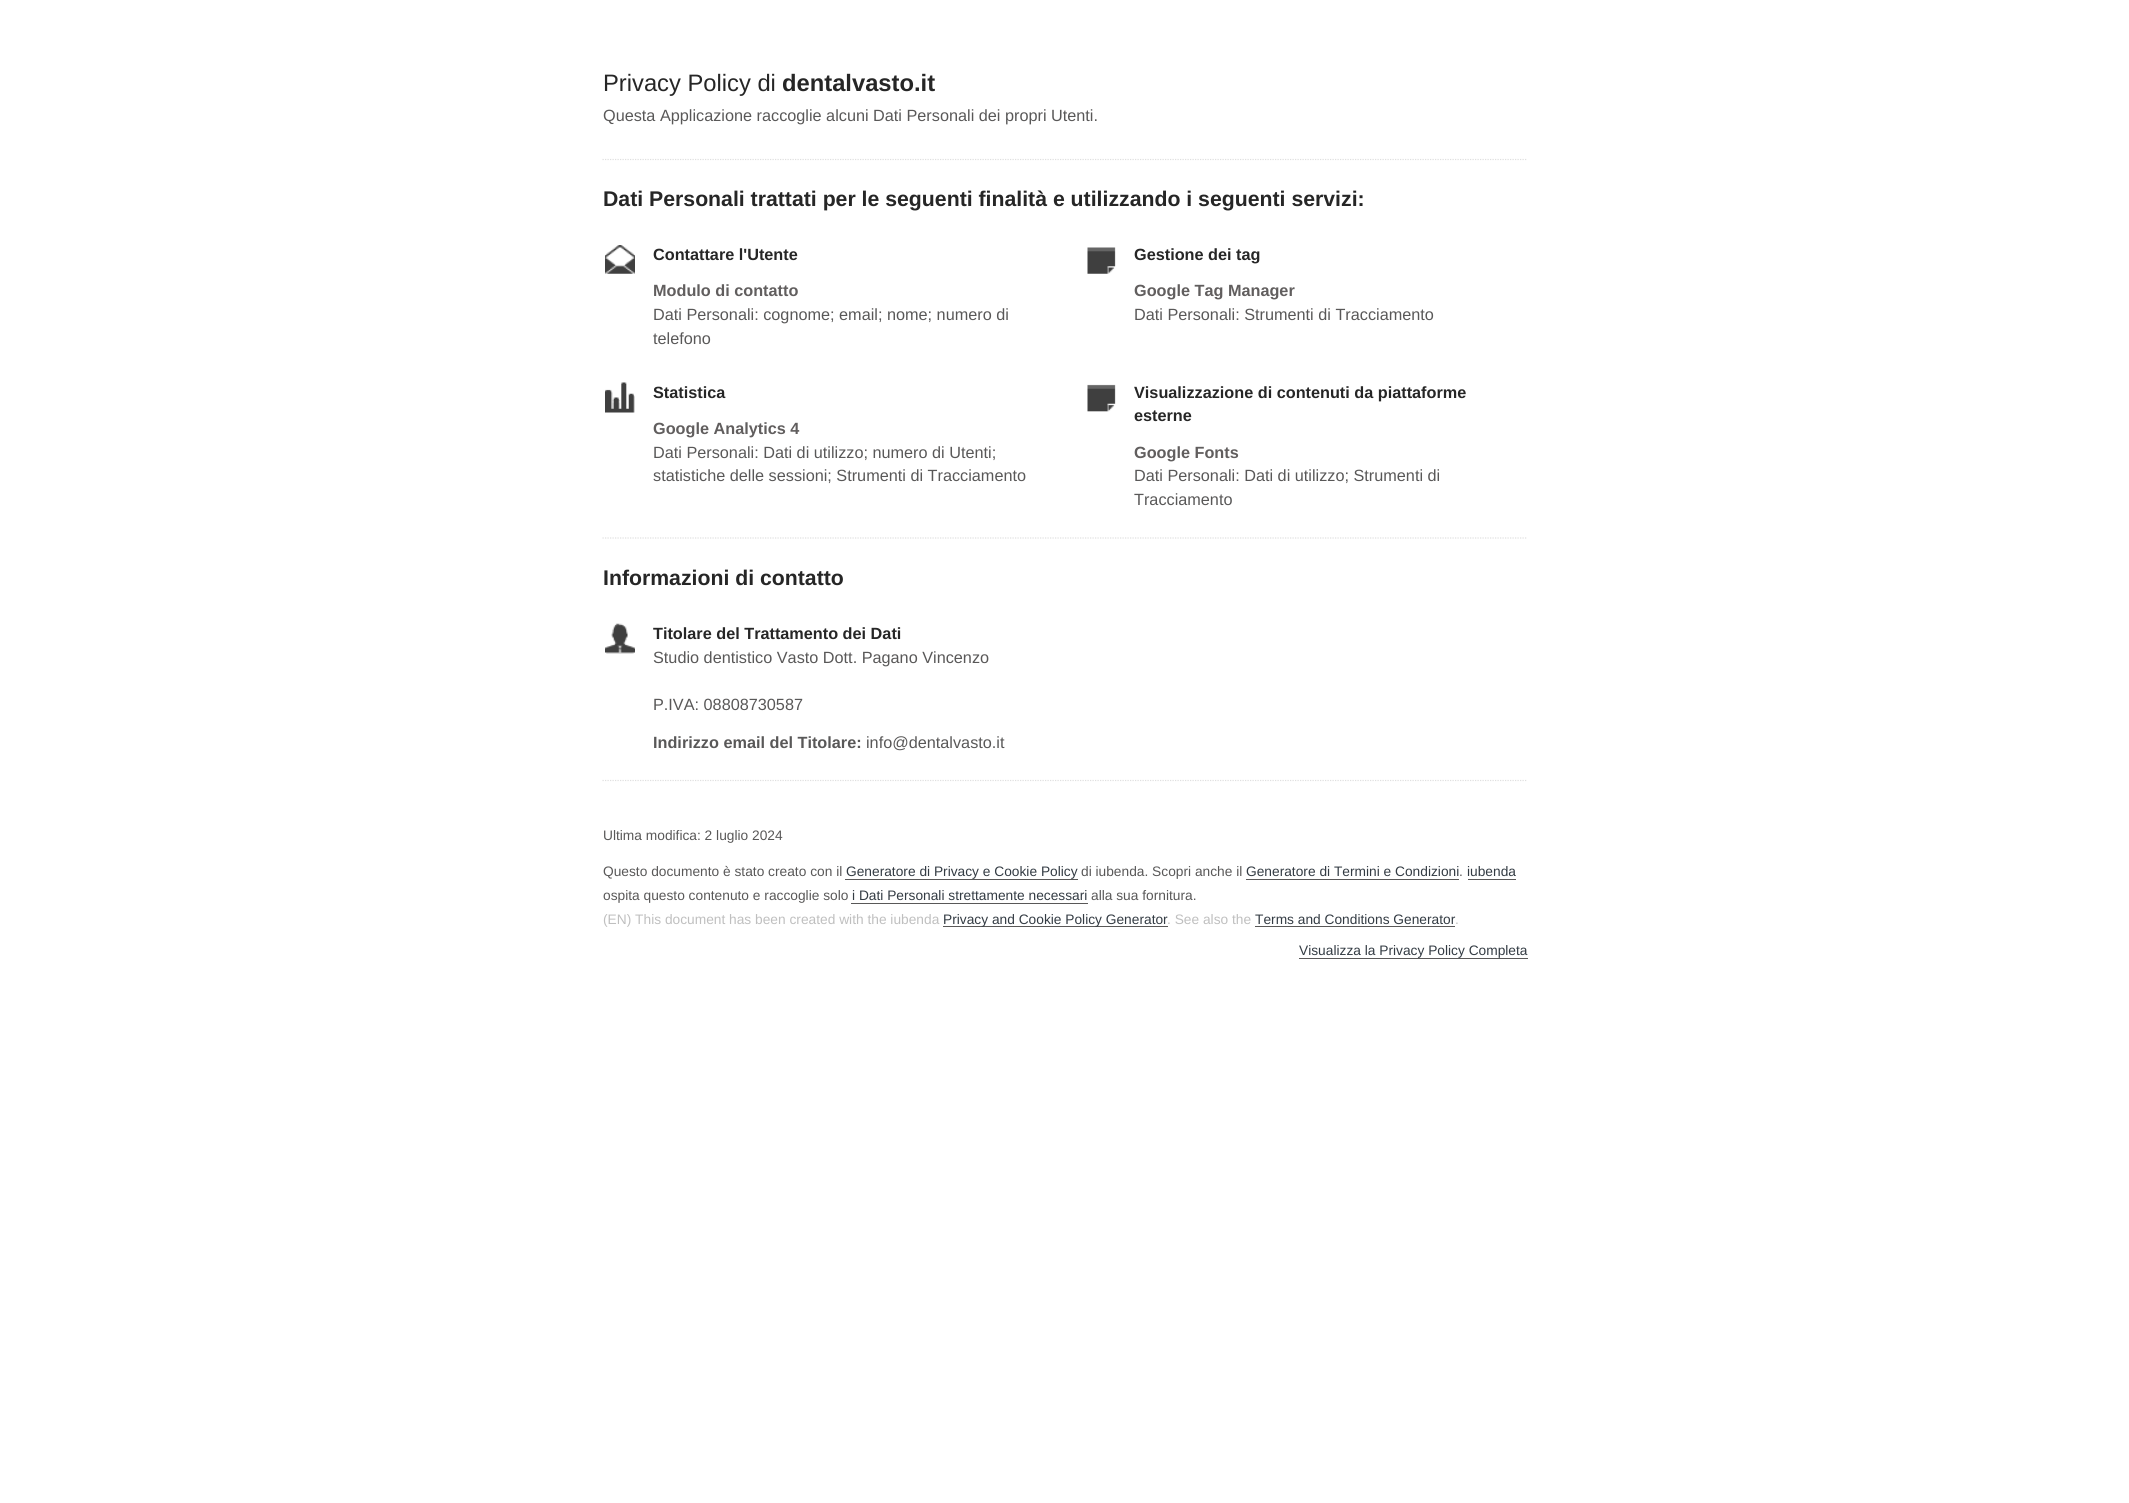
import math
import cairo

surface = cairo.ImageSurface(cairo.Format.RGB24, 2129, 1503)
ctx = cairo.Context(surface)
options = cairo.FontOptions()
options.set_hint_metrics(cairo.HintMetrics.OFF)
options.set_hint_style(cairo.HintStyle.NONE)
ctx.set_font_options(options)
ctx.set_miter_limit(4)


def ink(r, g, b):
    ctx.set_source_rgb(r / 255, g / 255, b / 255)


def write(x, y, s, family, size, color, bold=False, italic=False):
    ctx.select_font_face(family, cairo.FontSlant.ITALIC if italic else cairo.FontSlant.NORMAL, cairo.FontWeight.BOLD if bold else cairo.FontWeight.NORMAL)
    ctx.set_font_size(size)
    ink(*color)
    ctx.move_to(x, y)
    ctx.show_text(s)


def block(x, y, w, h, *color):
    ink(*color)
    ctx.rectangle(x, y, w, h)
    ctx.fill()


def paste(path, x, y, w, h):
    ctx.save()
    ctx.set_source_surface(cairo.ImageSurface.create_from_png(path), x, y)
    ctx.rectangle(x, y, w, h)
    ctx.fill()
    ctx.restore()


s1 = dict(family="Liberation Sans", size=23.75, color=(38, 38, 38))
s2 = dict(family="Liberation Sans", size=23.75, color=(38, 38, 38), bold=True)
s3 = dict(family="Liberation Sans", size=16.25, color=(89, 88, 88))
s4 = dict(family="Liberation Sans", size=21.25, color=(38, 38, 38), bold=True)
s5 = dict(family="Liberation Sans", size=16.25, color=(38, 38, 38), bold=True)
s6 = dict(family="Liberation Sans", size=16.25, color=(97, 94, 94), bold=True)
s7 = dict(family="Liberation Sans", size=16.25, color=(89, 88, 88), bold=True)
s8 = dict(family="Liberation Sans", size=13.75, color=(89, 88, 88))
s9 = dict(family="Liberation Sans", size=13.75, color=(51, 59, 67))
s10 = dict(family="Liberation Sans", size=13.75, color=(191, 191, 191))

ink(255, 255, 255)
ctx.paint()
ctx.new_path()
ctx.move_to(602.5, 159.5)
ctx.line_to(1527.5, 159.5)
ink(223, 223, 223)
ctx.set_line_width(1.2)
ctx.set_dash([1.25, 1.25])
ctx.stroke()
write(603, 91, "Privacy Policy di", **s1)
write(782, 91, "dentalvasto.it", **s2)
write(603, 121, "Questa Applicazione raccoglie alcuni Dati Personali dei propri Utenti.", **s3)
write(603, 206, "Dati Personali trattati per le seguenti finalità e utilizzando i seguenti servizi:", **s4)
ctx.new_path()
ctx.move_to(602.5, 538)
ctx.line_to(1527.5, 538)
ink(223, 223, 223)
ctx.stroke()
paste("pic1.png", 605, 245, 30, 29)
write(653, 260, "Contattare l'Utente", **s5)
write(653, 296, "Modulo di contatto", **s6)
write(653, 320, "Dati Personali: cognome; email; nome; numero di", **s3)
write(653, 344, "telefono", **s3)
paste("pic2.png", 1087, 247, 29, 27)
write(1134, 260, "Gestione dei tag", **s5)
write(1134, 296, "Google Tag Manager", **s6)
write(1134, 320, "Dati Personali: Strumenti di Tracciamento", **s3)
paste("pic3.png", 605, 382, 30, 31)
write(653, 398, "Statistica", **s5)
write(653, 434, "Google Analytics 4", **s6)
write(653, 458, "Dati Personali: Dati di utilizzo; numero di Utenti;", **s3)
write(653, 481, "statistiche delle sessioni; Strumenti di Tracciamento", **s3)
paste("pic4.png", 1087, 384, 29, 28)
write(1134, 398, "Visualizzazione di contenuti da piattaforme", **s5)
write(1134, 421, "esterne", **s5)
write(1134, 458, "Google Fonts", **s6)
write(1134, 481, "Dati Personali: Dati di utilizzo; Strumenti di", **s3)
write(1134, 505, "Tracciamento", **s3)
write(603, 585, "Informazioni di contatto", **s4)
ctx.new_path()
ctx.move_to(602.5, 780.5)
ctx.line_to(1527.5, 780.5)
ink(223, 223, 223)
ctx.stroke()
paste("pic5.png", 605, 623, 30, 31)
write(653, 639, "Titolare del Trattamento dei Dati", **s5)
write(653, 663, "Studio dentistico Vasto Dott. Pagano Vincenzo", **s3)
write(653, 710, "P.IVA: 08808730587", **s3)
write(653, 748, "Indirizzo email del Titolare:", **s7)
write(866, 748, "info@dentalvasto.it", **s3)
write(603, 840, "Ultima modifica: 2 luglio 2024", **s8)
write(603, 876, "Questo documento è stato creato con il", **s8)
write(846, 876, "Generatore di Privacy e Cookie Policy", **s9)
block(845, 879, 233, 1, 89, 88, 88)
write(1081, 876, "di iubenda. Scopri anche il", **s8)
write(1246, 876, "Generatore di Termini e Condizioni", **s9)
block(1246, 879, 213, 1, 89, 88, 88)
write(1459, 876, ".", **s8)
write(1467, 876, "iubenda", **s9)
block(1468, 879, 48, 1, 89, 88, 88)
write(603, 900, "ospita questo contenuto e raccoglie solo", **s8)
write(852, 900, "i Dati Personali strettamente necessari", **s9)
block(851, 903, 237, 1, 89, 88, 88)
write(1091, 900, "alla sua fornitura.", **s8)
write(603, 924, "(EN) This document has been created with the iubenda", **s10)
block(943, 926, 225, 1, 89, 88, 88)
write(943, 924, "Privacy and Cookie Policy Generator", **s9)
write(1167, 924, ". See also the", **s10)
write(1255, 924, "Terms and Conditions Generator", **s9)
write(1455, 924, ".", **s10)
block(1255, 926, 200, 1, 89, 88, 88)
block(1299, 958, 229, 1, 89, 88, 88)
write(1299, 955, "Visualizza la Privacy Policy Completa", **s9)
surface.write_to_png("screenshot.png")
